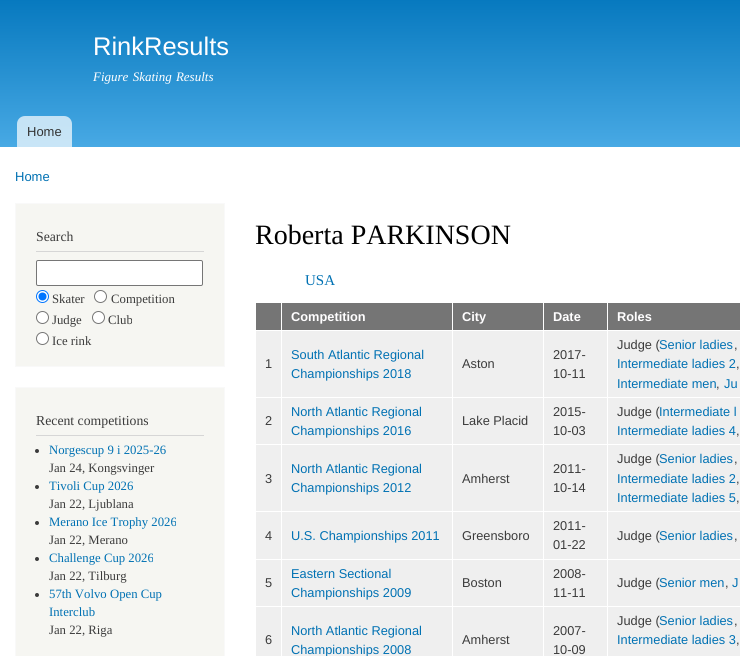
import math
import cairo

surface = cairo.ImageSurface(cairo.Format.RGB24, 740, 656)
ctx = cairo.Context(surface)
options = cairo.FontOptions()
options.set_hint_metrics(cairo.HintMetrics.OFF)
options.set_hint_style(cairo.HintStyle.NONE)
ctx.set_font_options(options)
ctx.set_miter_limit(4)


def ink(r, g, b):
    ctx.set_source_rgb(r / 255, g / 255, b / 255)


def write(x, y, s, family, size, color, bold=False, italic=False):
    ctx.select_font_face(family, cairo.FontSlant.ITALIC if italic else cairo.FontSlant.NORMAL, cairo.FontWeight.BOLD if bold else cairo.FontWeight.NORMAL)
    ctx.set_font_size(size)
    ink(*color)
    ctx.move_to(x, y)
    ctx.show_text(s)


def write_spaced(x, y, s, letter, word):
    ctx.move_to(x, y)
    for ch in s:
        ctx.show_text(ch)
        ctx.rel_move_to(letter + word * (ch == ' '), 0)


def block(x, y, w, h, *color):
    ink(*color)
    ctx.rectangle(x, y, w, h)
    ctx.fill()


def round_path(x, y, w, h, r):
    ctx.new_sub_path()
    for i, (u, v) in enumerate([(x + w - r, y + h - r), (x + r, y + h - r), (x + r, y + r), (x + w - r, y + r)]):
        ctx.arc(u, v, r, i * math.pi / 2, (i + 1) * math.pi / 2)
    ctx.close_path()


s1 = dict(family="Liberation Sans", size=25.5, color=(255, 254, 255))
s2 = dict(family="Liberation Sans", size=13, color=(51, 51, 51))
s3 = dict(family="Liberation Sans", size=13, color=(0, 113, 179))
s4 = dict(family="Liberation Serif", size=13.75, color=(59, 59, 59))
s5 = dict(family="Liberation Serif", size=12.75, color=(59, 59, 59))
s6 = dict(family="Liberation Serif", size=12.75, color=(0, 113, 179))
s7 = dict(family="Liberation Serif", size=28, color=(0, 0, 0))
s8 = dict(family="Liberation Serif", size=15, color=(0, 113, 179))
s9 = dict(family="Liberation Sans", size=12.8, color=(255, 254, 255), bold=True)
s10 = dict(family="Liberation Sans", size=12.8, color=(59, 59, 59))
s11 = dict(family="Liberation Sans", size=12.8, color=(0, 113, 179))

ink(255, 255, 255)
ctx.paint()
gradient = cairo.LinearGradient(480, 0, 480, 147)
gradient.add_color_stop_rgba(0, 0.027, 0.475, 0.749, 1)
gradient.add_color_stop_rgba(1, 0.282, 0.663, 0.894, 1)
ctx.set_source(gradient)
ctx.rectangle(0, 0, 740, 147)
ctx.fill()
write(93, 55, "RinkResults", **s1)
ctx.select_font_face("Liberation Serif", cairo.FontSlant.ITALIC)
ctx.set_font_size(13)
write_spaced(93, 81, "Figure Skating Results", 0, 1)
ctx.set_source_rgba(1, 1, 1, 0.7)
ctx.new_path()
ctx.move_to(25, 116)
ctx.line_to(64, 116)
ctx.curve_to(68.5, 116, 72, 119.5, 72, 124)
ctx.line_to(72, 147)
ctx.line_to(17, 147)
ctx.line_to(17, 124)
ctx.curve_to(17, 119.5, 20.5, 116, 25, 116)
ctx.close_path()
ctx.fill()
write(27, 136, "Home", **s2)
write(15, 181, "Home", **s3)
ink(246, 246, 242)
ctx.rectangle(15.5, 203.5, 209, 163)
ctx.fill_preserve()
ink(249, 249, 249)
ctx.set_line_width(1)
ctx.stroke()
block(36, 251, 168, 1, 214, 214, 214)
write(36, 241, "Search", **s4)
ink(255, 255, 255)
round_path(36.5, 260.5, 166, 25, 1.5)
ctx.fill_preserve()
ink(118, 118, 118)
ctx.stroke()
ink(255, 255, 255)
ctx.arc(42.5, 296.5, 6, 0, 2 * math.pi)
ctx.fill_preserve()
ink(0, 117, 255)
ctx.stroke()
ctx.arc(42.5, 296.5, 4, 0, 2 * math.pi)
ctx.fill()
write(52, 303, "Skater", **s5)
ink(255, 255, 255)
ctx.new_path()
ctx.arc(100.5, 296.5, 6, 0, 2 * math.pi)
ctx.fill_preserve()
ink(118, 118, 118)
ctx.stroke()
write(111, 303, "Competition", **s5)
ink(255, 255, 255)
ctx.new_path()
ctx.arc(42.5, 317.5, 6, 0, 2 * math.pi)
ctx.fill_preserve()
ink(118, 118, 118)
ctx.stroke()
write(52, 324, "Judge", **s5)
ink(255, 255, 255)
ctx.new_path()
ctx.arc(98.5, 317.5, 6, 0, 2 * math.pi)
ctx.fill_preserve()
ink(118, 118, 118)
ctx.stroke()
write(108, 324, "Club", **s5)
ink(255, 255, 255)
ctx.new_path()
ctx.arc(42.5, 338.5, 6, 0, 2 * math.pi)
ctx.fill_preserve()
ink(118, 118, 118)
ctx.stroke()
write(52, 345, "Ice rink", **s5)
ink(246, 246, 242)
ctx.rectangle(15.5, 387.5, 209, 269)
ctx.fill_preserve()
ink(249, 249, 249)
ctx.stroke()
block(36, 435, 168, 1, 214, 214, 214)
write(36, 425, "Recent competitions", **s4)
ctx.new_path()
ctx.arc(37, 451, 2, 0, 2 * math.pi)
ctx.fill()
write(49, 454, "Norgescup 9 i 2025-26", **s6)
write(49, 472, "Jan 24, Kongsvinger", **s5)
ctx.new_path()
ctx.arc(37, 487, 2, 0, 2 * math.pi)
ctx.fill()
write(49, 490, "Tivoli Cup 2026", **s6)
write(49, 508, "Jan 22, Ljublana", **s5)
ctx.new_path()
ctx.arc(37, 523, 2, 0, 2 * math.pi)
ctx.fill()
write(49, 526, "Merano Ice Trophy 2026", **s6)
write(49, 544, "Jan 22, Merano", **s5)
ctx.new_path()
ctx.arc(37, 559, 2, 0, 2 * math.pi)
ctx.fill()
write(49, 562, "Challenge Cup 2026", **s6)
write(49, 580, "Jan 22, Tilburg", **s5)
ctx.new_path()
ctx.arc(37, 595, 2, 0, 2 * math.pi)
ctx.fill()
write(49, 598, "57th Volvo Open Cup", **s6)
write(49, 616, "Interclub", **s6)
write(49, 634, "Jan 22, Riga", **s5)
write(255, 244, "Roberta PARKINSON", **s7)
write(305, 285, "USA", **s8)
block(256, 303, 25, 27, 117, 117, 117)
block(282, 303, 170, 27, 117, 117, 117)
write(291, 321, "Competition", **s9)
block(453, 303, 90, 27, 117, 117, 117)
write(462, 321, "City", **s9)
block(544, 303, 63, 27, 117, 117, 117)
write(553, 321, "Date", **s9)
block(608, 303, 132, 27, 117, 117, 117)
write(617, 321, "Roles", **s9)
block(256, 331, 484, 66, 239, 239, 239)
write(265, 368, "1", **s10)
write(291, 359, "South Atlantic Regional", **s11)
write(291, 378, "Championships 2018", **s11)
write(462, 368, "Aston", **s10)
write(553, 359, "2017-", **s10)
write(553, 378, "10-11", **s10)
write(617, 349, "Judge (", **s10)
write(659, 349, "Senior ladies", **s11)
write(734, 349, ",", **s10)
write(617, 368, "Intermediate ladies 2", **s11)
write(736, 368, ",", **s10)
write(617, 388, "Intermediate men", **s11)
write(716, 388, ",", **s10)
write(724, 388, "Ju", **s11)
block(256, 398, 484, 46, 239, 239, 239)
write(265, 425, "2", **s10)
write(291, 416, "North Atlantic Regional", **s11)
write(291, 435, "Championships 2016", **s11)
write(462, 425, "Lake Placid", **s10)
write(553, 416, "2015-", **s10)
write(553, 435, "10-03", **s10)
write(617, 416, "Judge (", **s10)
write(659, 416, "Intermediate l", **s11)
write(617, 435, "Intermediate ladies 4", **s11)
write(736, 435, ",", **s10)
block(256, 445, 484, 66, 239, 239, 239)
write(265, 483, "3", **s10)
write(291, 473, "North Atlantic Regional", **s11)
write(291, 492, "Championships 2012", **s11)
write(462, 483, "Amherst", **s10)
write(553, 473, "2011-", **s10)
write(553, 492, "10-14", **s10)
write(617, 463, "Judge (", **s10)
write(659, 463, "Senior ladies", **s11)
write(734, 463, ",", **s10)
write(617, 483, "Intermediate ladies 2", **s11)
write(736, 483, ",", **s10)
write(617, 502, "Intermediate ladies 5", **s11)
write(736, 502, ",", **s10)
block(256, 512, 484, 47, 239, 239, 239)
write(265, 540, "4", **s10)
write(291, 540, "U.S. Championships 2011", **s11)
write(462, 540, "Greensboro", **s10)
write(553, 530, "2011-", **s10)
write(553, 549, "01-22", **s10)
write(617, 540, "Judge (", **s10)
write(659, 540, "Senior ladies", **s11)
write(734, 540, ",", **s10)
block(256, 560, 484, 46, 239, 239, 239)
write(265, 587, "5", **s10)
write(291, 578, "Eastern Sectional", **s11)
write(291, 597, "Championships 2009", **s11)
write(462, 587, "Boston", **s10)
write(553, 578, "2008-", **s10)
write(553, 597, "11-11", **s10)
write(617, 587, "Judge (", **s10)
write(659, 587, "Senior men", **s11)
write(725, 587, ",", **s10)
write(732, 587, "J", **s11)
block(256, 607, 484, 49, 239, 239, 239)
write(265, 644, "6", **s10)
block(281, 330, 1, 326, 255, 255, 255)
write(291, 635, "North Atlantic Regional", **s11)
write(291, 654, "Championships 2008", **s11)
block(452, 330, 1, 326, 255, 255, 255)
write(462, 644, "Amherst", **s10)
block(543, 330, 1, 326, 255, 255, 255)
write(553, 635, "2007-", **s10)
write(553, 654, "10-09", **s10)
block(607, 330, 1, 326, 255, 255, 255)
write(617, 625, "Judge (", **s10)
write(659, 625, "Senior ladies", **s11)
write(734, 625, ",", **s10)
write(617, 644, "Intermediate ladies 3", **s11)
write(736, 644, ",", **s10)
surface.write_to_png("screenshot.png")
